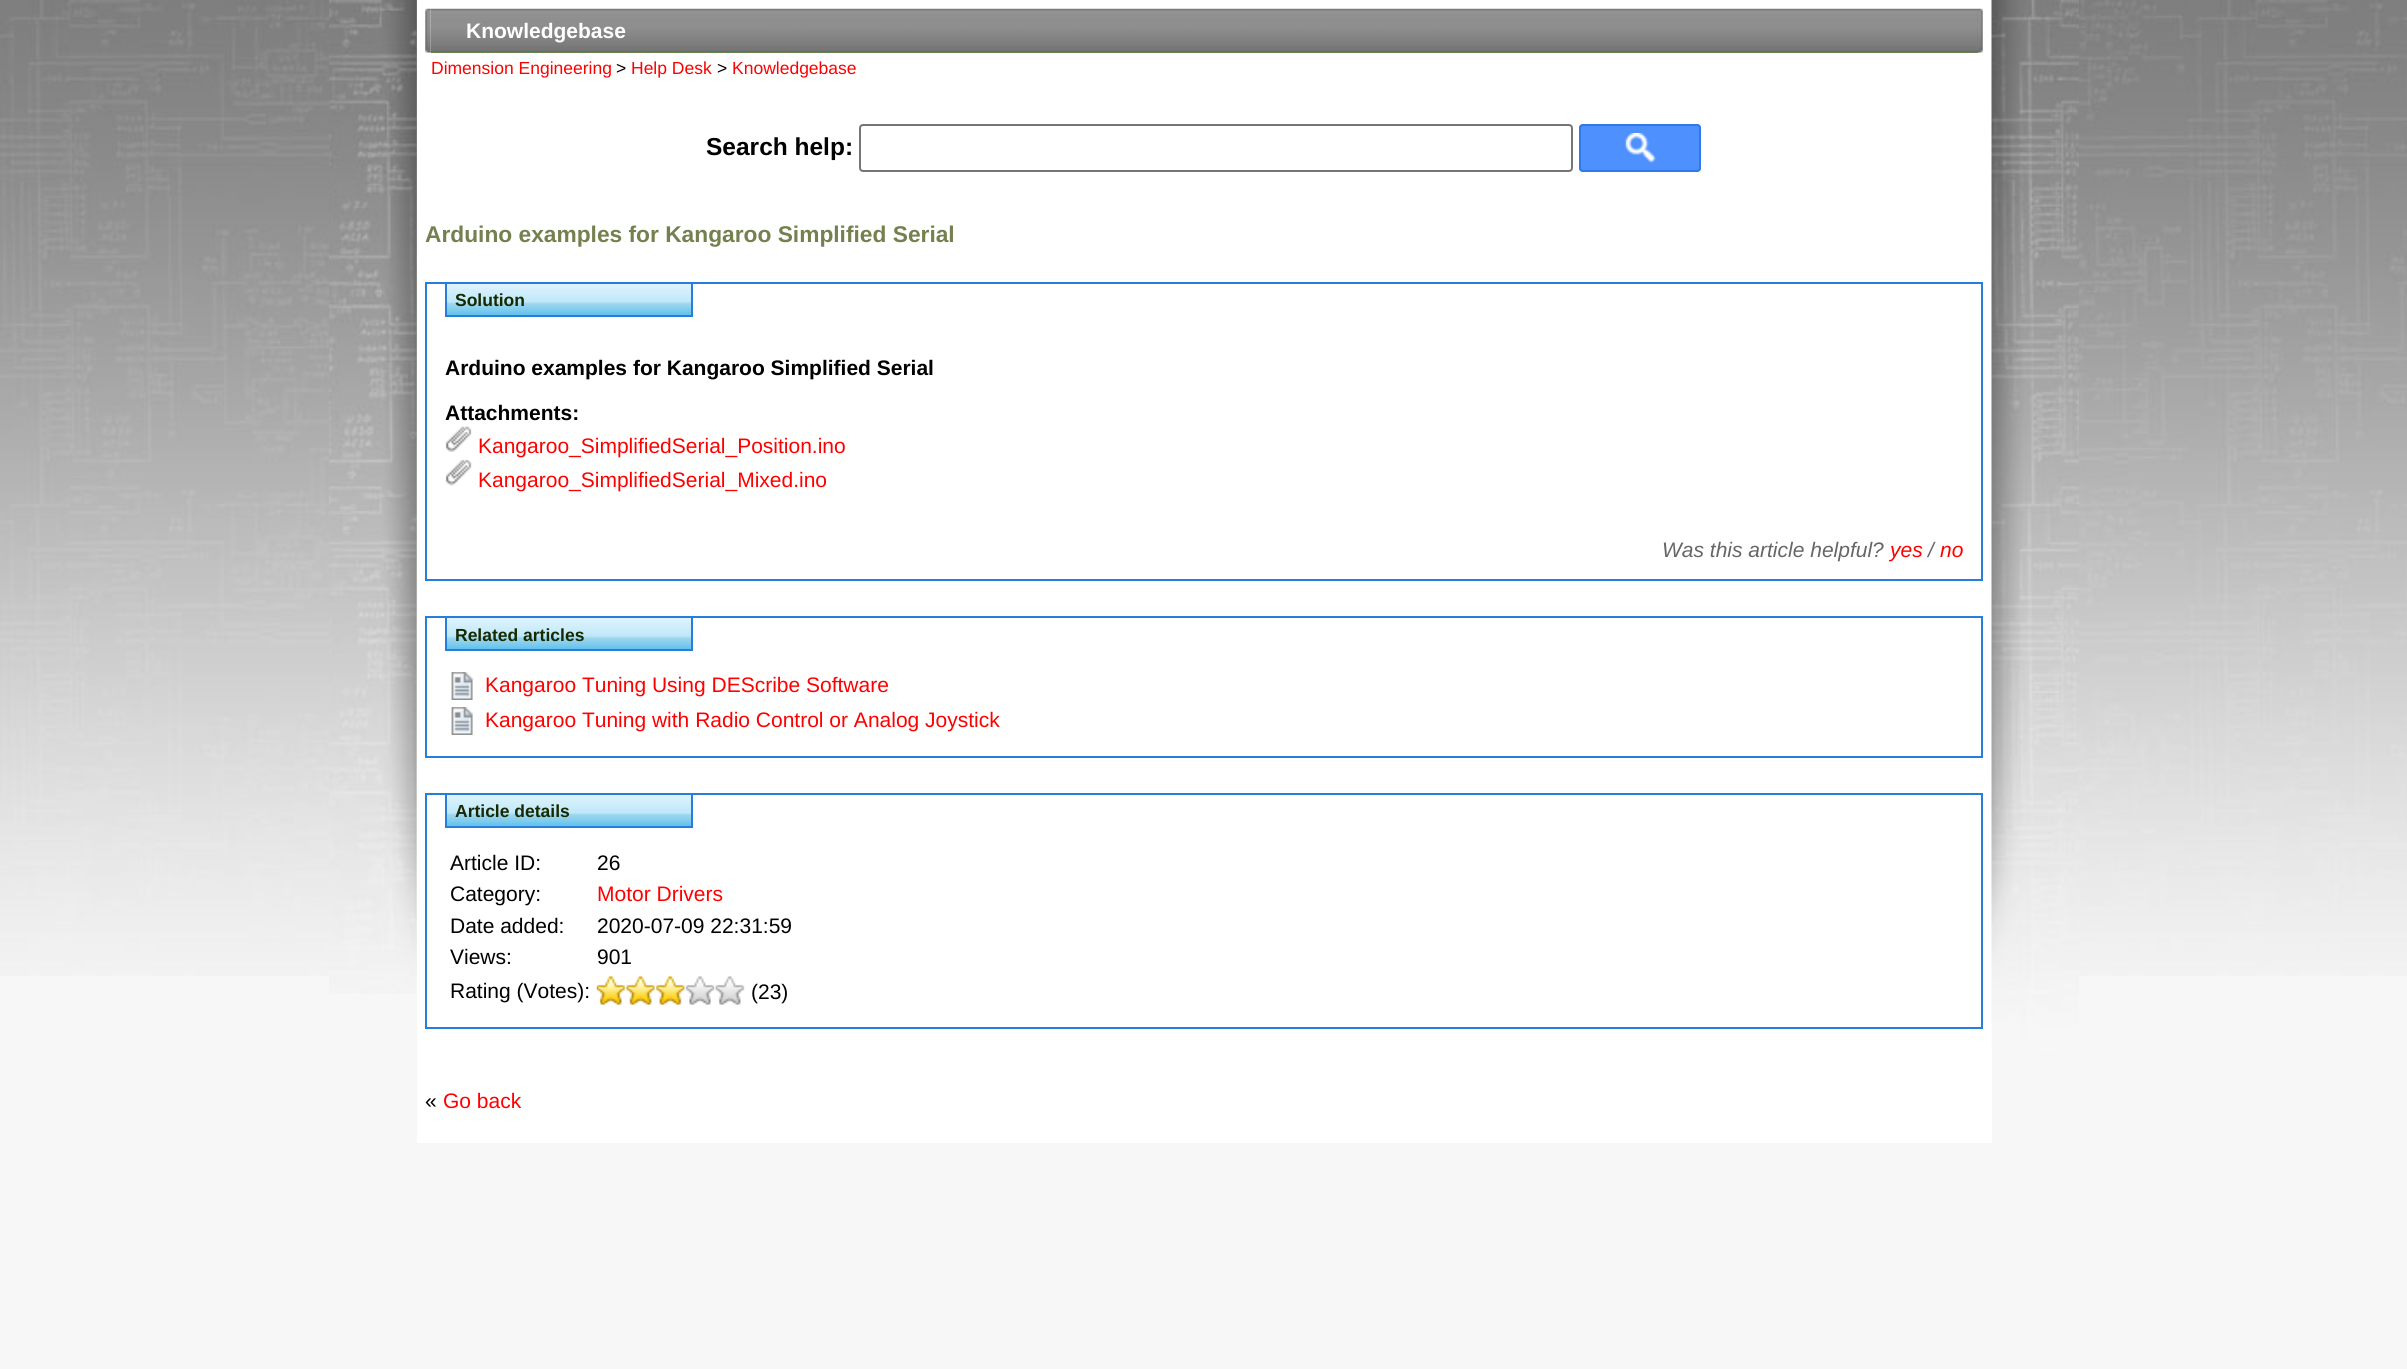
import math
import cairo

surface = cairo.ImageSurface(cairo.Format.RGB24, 2407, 1369)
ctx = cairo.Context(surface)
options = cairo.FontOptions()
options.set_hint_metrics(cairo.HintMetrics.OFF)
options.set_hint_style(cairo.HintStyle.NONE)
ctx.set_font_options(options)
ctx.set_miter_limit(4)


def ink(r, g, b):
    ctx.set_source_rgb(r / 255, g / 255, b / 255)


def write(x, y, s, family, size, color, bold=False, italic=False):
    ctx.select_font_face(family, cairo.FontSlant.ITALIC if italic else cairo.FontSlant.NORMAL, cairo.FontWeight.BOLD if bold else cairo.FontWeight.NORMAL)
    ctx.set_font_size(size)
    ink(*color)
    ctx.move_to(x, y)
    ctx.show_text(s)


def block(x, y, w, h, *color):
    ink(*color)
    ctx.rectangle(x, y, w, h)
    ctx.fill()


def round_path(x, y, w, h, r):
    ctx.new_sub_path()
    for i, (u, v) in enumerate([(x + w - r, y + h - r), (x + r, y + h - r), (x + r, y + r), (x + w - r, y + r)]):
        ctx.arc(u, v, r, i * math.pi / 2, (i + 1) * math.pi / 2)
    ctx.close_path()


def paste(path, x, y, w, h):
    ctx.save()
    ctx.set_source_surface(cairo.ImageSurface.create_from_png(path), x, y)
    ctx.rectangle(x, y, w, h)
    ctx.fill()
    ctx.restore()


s1 = dict(family="Liberation Sans", size=21, color=(255, 255, 255), bold=True)
s2 = dict(family="Liberation Sans", size=17.5, color=(255, 0, 0))
s3 = dict(family="Liberation Sans", size=17.5, color=(0, 0, 0))
s4 = dict(family="Liberation Sans", size=24.5, color=(0, 0, 0), bold=True)
s5 = dict(family="Liberation Sans", size=22.75, color=(116, 128, 78), bold=True)
s6 = dict(family="Liberation Sans", size=17.5, color=(23, 41, 1), bold=True)
s7 = dict(family="Liberation Sans", size=21, color=(0, 0, 0), bold=True)
s8 = dict(family="Liberation Sans", size=21, color=(255, 0, 0))
s9 = dict(family="Liberation Sans", size=21, color=(102, 102, 102), italic=True)
s10 = dict(family="Liberation Sans", size=21, color=(255, 0, 0), italic=True)
s11 = dict(family="Liberation Sans", size=21, color=(0, 0, 0))

ink(247, 247, 247)
ctx.paint()
paste("pic1.png", 0, 0, 2407, 976)
paste("pic2.png", 329, 0, 88, 994)
block(417, 0, 1575, 1143, 255, 255, 255)
block(431, 9, 1547, 44, 102, 153, 51)
paste("pic4.png", 430, 8, 1548, 45)
paste("pic3.png", 425, 8, 6, 45)
write(466, 38, "Knowledgebase", **s1)
paste("pic5.png", 1977, 8, 6, 45)
write(431, 74, "Dimension Engineering", **s2)
write(616, 74, ">", **s3)
write(631, 74, "Help Desk", **s2)
write(717, 74, ">", **s3)
write(732, 74, "Knowledgebase", **s2)
write(706, 155, "Search help:", **s4)
round_path(860, 125, 712, 46, 3)
ink(118, 118, 118)
ctx.stroke()
ink(77, 144, 254)
round_path(1579, 124, 122, 48, 4)
ctx.fill()
paste("pic6.png", 1625, 133, 31, 30)
round_path(1580, 125, 120, 46, 3)
ink(48, 121, 237)
ctx.stroke()
write(425, 242, "Arduino examples for Kangaroo Simplified Serial", **s5)
ctx.rectangle(426, 283, 1556, 297)
ink(38, 125, 220)
ctx.stroke()
paste("pic7.png", 447, 284, 244, 31)
ctx.rectangle(446, 283, 246, 33)
ctx.stroke()
write(455, 306, "Solution", **s6)
write(445, 375, "Arduino examples for Kangaroo Simplified Serial", **s7)
write(445, 420, "Attachments:", **s7)
paste("pic8.png", 445, 426, 27, 26)
write(478, 453, "Kangaroo_SimplifiedSerial_Position.ino", **s8)
paste("pic9.png", 445, 459, 27, 27)
write(478, 487, "Kangaroo_SimplifiedSerial_Mixed.ino", **s8)
write(1662, 557, "Was this article helpful?", **s9)
write(1890, 557, "yes", **s10)
write(1928, 557, "/", **s9)
write(1940, 557, "no", **s10)
ctx.rectangle(426, 617, 1556, 140)
ink(38, 125, 220)
ctx.stroke()
paste("pic10.png", 447, 618, 244, 31)
ctx.rectangle(446, 617, 246, 33)
ctx.stroke()
write(455, 641, "Related articles", **s6)
paste("pic11.png", 451, 672, 22, 28)
write(485, 692, "Kangaroo Tuning Using DEScribe Software", **s8)
paste("pic11.png", 451, 707, 22, 28)
write(485, 727, "Kangaroo Tuning with Radio Control or Analog Joystick", **s8)
ctx.rectangle(426, 794, 1556, 234)
ink(38, 125, 220)
ctx.stroke()
paste("pic7.png", 447, 795, 244, 31)
ctx.rectangle(446, 794, 246, 33)
ctx.stroke()
write(455, 817, "Article details", **s6)
write(450, 870, "Article ID:", **s11)
write(597, 870, "26", **s11)
write(450, 901, "Category:", **s11)
write(597, 901, "Motor Drivers", **s8)
write(450, 933, "Date added:", **s11)
write(597, 933, "2020-07-09 22:31:59", **s11)
write(450, 964, "Views:", **s11)
write(597, 964, "901", **s11)
write(450, 998, "Rating (Votes):", **s11)
paste("pic12.png", 596, 976, 149, 29)
write(751, 999, "(23)", **s11)
write(425, 1108, "«", **s11)
write(443, 1108, "Go back", **s8)
paste("pic13.png", 1991, 0, 88, 1050)
surface.write_to_png("screenshot.png")
